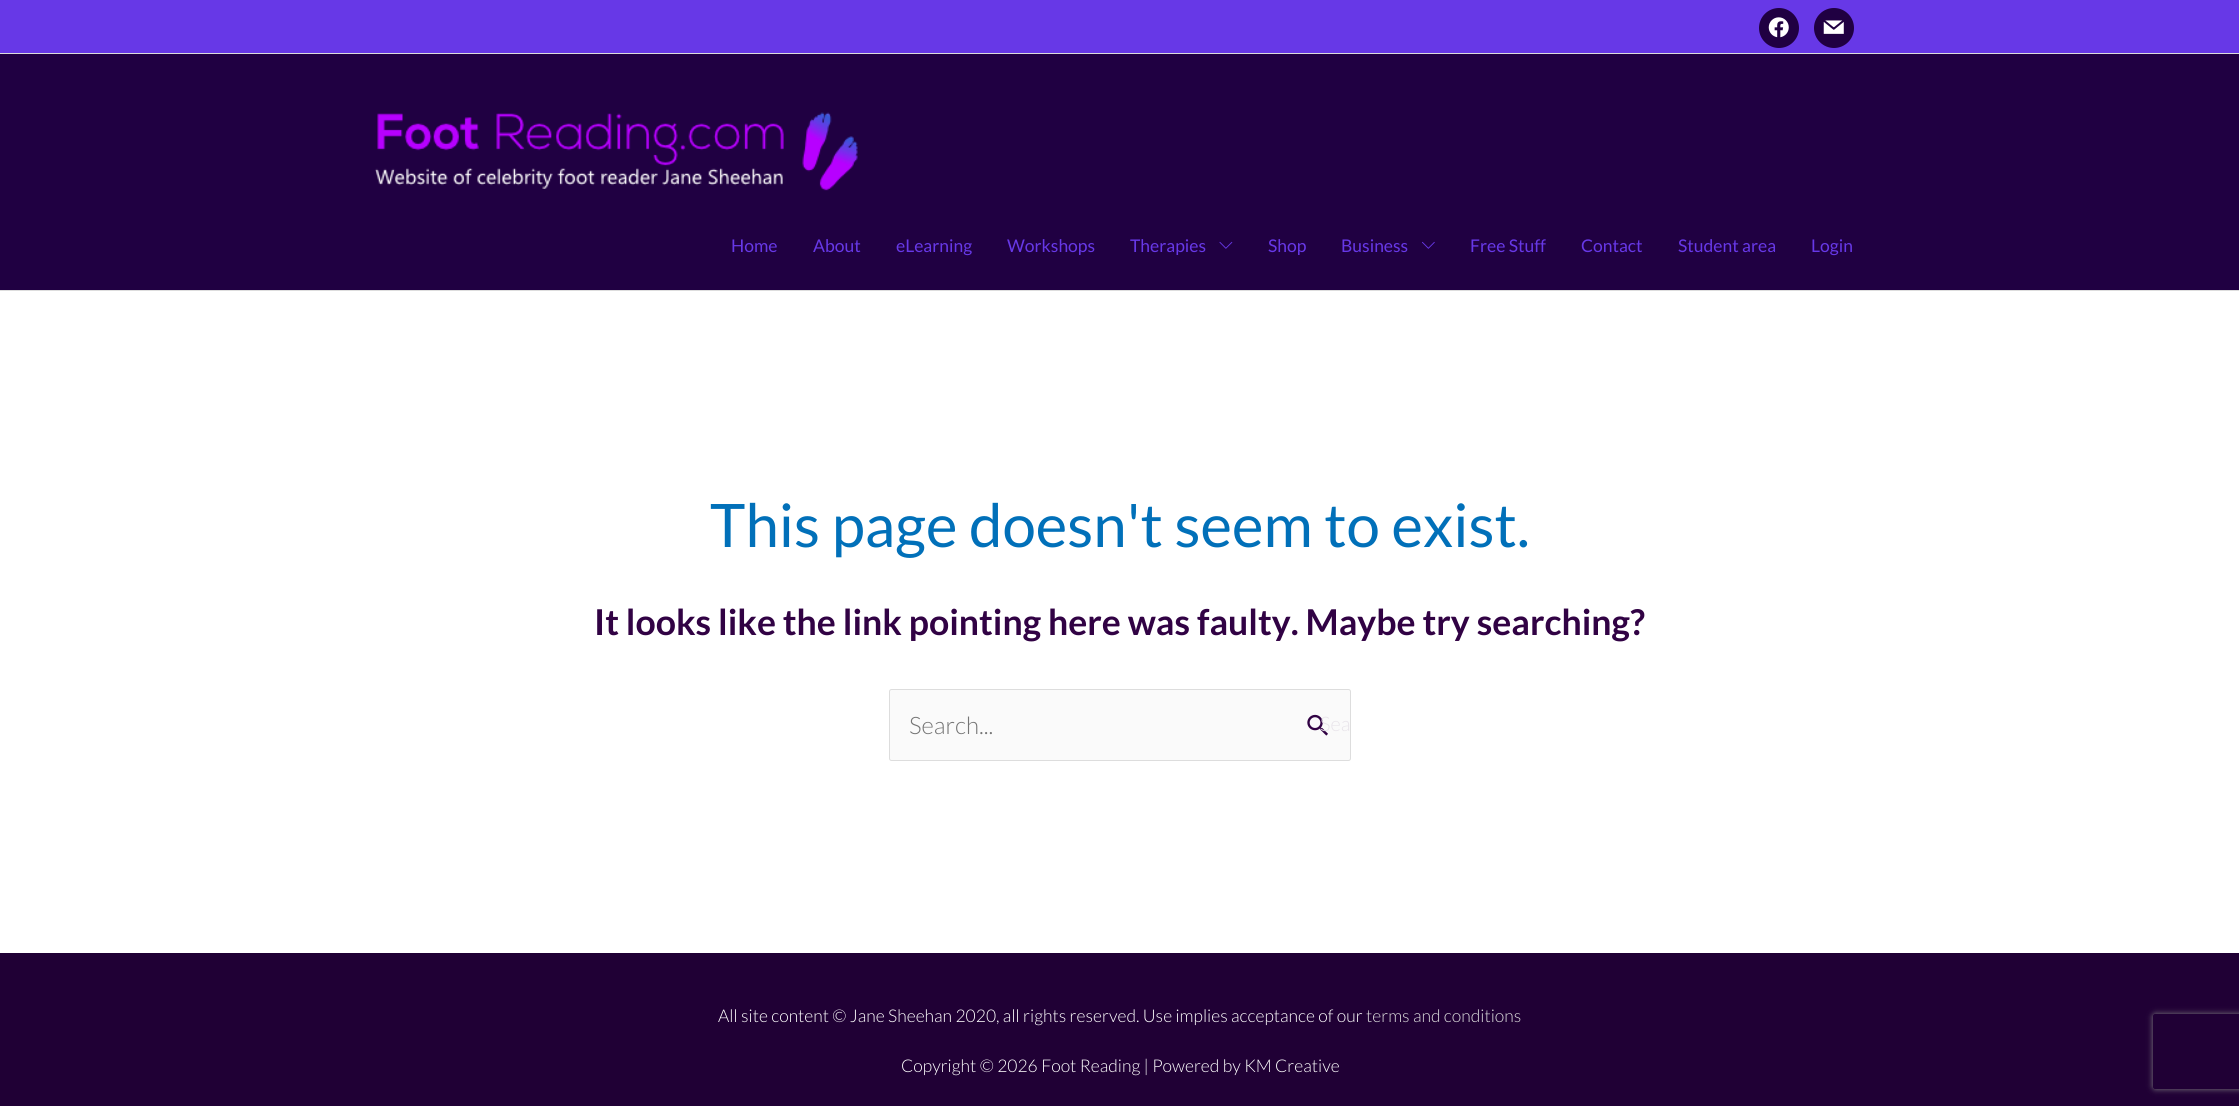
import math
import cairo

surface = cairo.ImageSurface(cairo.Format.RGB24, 2239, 1106)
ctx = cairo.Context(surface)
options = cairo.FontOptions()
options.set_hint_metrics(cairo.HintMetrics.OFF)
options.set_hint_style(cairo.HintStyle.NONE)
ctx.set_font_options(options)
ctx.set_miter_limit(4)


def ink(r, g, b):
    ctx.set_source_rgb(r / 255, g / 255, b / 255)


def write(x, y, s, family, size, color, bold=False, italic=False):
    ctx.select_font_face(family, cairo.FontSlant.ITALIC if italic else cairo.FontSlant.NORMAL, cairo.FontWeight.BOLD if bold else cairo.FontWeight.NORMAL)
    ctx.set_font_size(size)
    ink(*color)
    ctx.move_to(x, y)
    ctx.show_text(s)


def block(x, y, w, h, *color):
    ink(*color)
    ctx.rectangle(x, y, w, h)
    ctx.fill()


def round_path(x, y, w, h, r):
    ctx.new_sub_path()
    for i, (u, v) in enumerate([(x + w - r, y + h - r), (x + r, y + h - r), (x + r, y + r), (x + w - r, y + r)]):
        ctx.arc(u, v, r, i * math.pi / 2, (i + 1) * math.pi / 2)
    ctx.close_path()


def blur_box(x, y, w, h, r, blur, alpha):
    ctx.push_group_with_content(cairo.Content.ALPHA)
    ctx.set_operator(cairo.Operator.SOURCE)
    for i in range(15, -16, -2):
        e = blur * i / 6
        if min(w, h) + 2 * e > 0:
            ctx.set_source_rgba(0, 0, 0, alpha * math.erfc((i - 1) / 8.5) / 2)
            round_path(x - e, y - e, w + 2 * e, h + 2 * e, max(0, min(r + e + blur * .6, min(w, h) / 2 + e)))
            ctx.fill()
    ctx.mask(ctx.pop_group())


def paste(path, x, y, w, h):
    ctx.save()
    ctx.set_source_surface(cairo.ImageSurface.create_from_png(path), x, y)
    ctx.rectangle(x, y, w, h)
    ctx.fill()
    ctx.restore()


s1 = dict(family="Lato", size=17.5, color=(103, 56, 231))
s2 = dict(family="Lato", size=60, color=(1, 112, 185))
s3 = dict(family="Lato", size=35.6, color=(49, 2, 68), bold=True)
s4 = dict(family="Lato Light", size=24, color=(117, 117, 117))
s5 = dict(family="Lato Light", size=20, color=(232, 228, 234))
s6 = dict(family="Lato Light", size=17.5, color=(255, 255, 255))
s7 = dict(family="Lato Light", size=17.5, color=(221, 221, 221))

ink(255, 255, 255)
ctx.paint()
block(0, 0, 2239, 53, 103, 56, 231)
block(0, 53, 2239, 1, 221, 221, 221)
ink(32, 0, 66)
ctx.arc(1779, 28, 20, 0, 2 * math.pi)
ctx.fill()
paste("pic1.png", 1768, 17, 21, 21)
ctx.arc(1834, 28, 20, 0, 2 * math.pi)
ctx.fill()
paste("pic2.png", 1823, 20, 21, 14)
block(0, 54, 2239, 236, 32, 0, 66)
block(0, 290, 2239, 1, 221, 221, 221)
paste("pic3.png", 375, 112, 483, 79)
write(731, 252, "Home", **s1)
write(813, 252, "About", **s1)
write(896, 252, "eLearning", **s1)
write(1007, 252, "Workshops", **s1)
write(1130, 252, "Therapies", **s1)
paste("pic4.png", 1219, 241, 14, 8)
write(1268, 252, "Shop", **s1)
write(1341, 252, "Business", **s1)
paste("pic5.png", 1422, 241, 13, 8)
write(1470, 252, "Free Stuff", **s1)
write(1581, 252, "Contact", **s1)
write(1678, 252, "Student area", **s1)
write(1811, 252, "Login", **s1)
write(710, 547, "This page doesn't seem to exist.", **s2)
write(594, 635, "It looks like the link pointing here was faulty. Maybe try searching?", **s3)
ink(250, 250, 250)
round_path(889.5, 689.5, 461, 71, 2)
ctx.fill_preserve()
ink(221, 221, 221)
ctx.set_line_width(1)
ctx.stroke()
write(909, 734, "Search...", **s4)
paste("pic6.png", 1307, 714, 21, 22)
write(1320, 731, "Sea", **s5)
block(0, 953, 2239, 153, 32, 0, 53)
write(718, 1022, "All site content © Jane Sheehan 2020, all rights reserved. Use implies acceptance of our", **s6)
write(1366, 1022, "terms and conditions", **s7)
write(901, 1072, "Copyright © 2026 Foot Reading | Powered by KM Creative", **s6)
ctx.save()
ctx.set_fill_rule(cairo.FillRule.EVEN_ODD)
ctx.new_path()
ctx.move_to(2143, 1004)
ctx.line_to(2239, 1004)
ctx.line_to(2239, 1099)
ctx.line_to(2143, 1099)
ctx.close_path()
ctx.move_to(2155.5, 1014)
ctx.line_to(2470.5, 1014)
ctx.curve_to(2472, 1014, 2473, 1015, 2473, 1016.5)
ctx.line_to(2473, 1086.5)
ctx.curve_to(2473, 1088, 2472, 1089, 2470.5, 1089)
ctx.line_to(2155.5, 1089)
ctx.curve_to(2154, 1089, 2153, 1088, 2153, 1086.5)
ctx.line_to(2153, 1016.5)
ctx.curve_to(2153, 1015, 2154, 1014, 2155.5, 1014)
ctx.close_path()
ctx.clip()
ink(128, 128, 128)
blur_box(2153, 1014, 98, 75, 2.5, 3, 1)
ctx.restore()
surface.write_to_png("screenshot.png")
